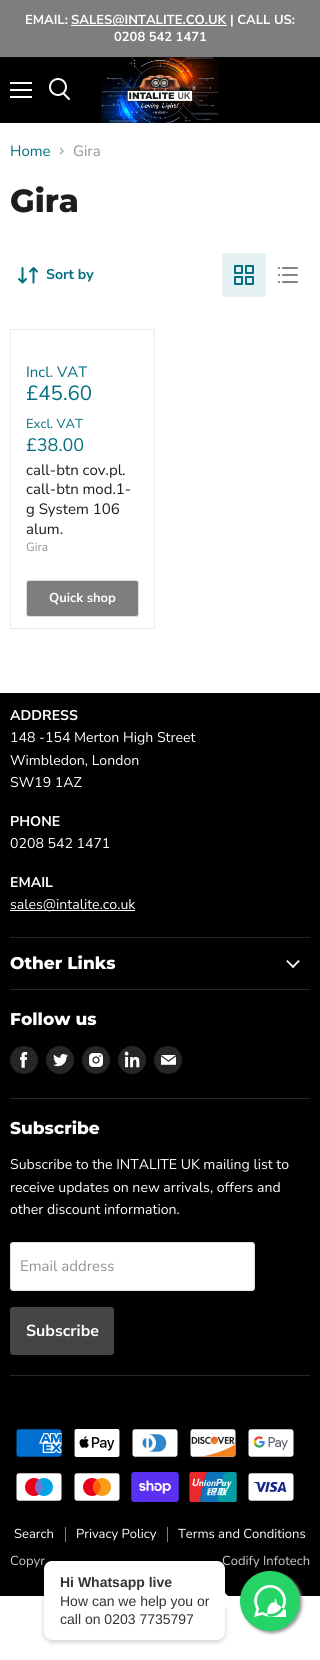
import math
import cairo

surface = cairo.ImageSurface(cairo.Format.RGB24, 320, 1660)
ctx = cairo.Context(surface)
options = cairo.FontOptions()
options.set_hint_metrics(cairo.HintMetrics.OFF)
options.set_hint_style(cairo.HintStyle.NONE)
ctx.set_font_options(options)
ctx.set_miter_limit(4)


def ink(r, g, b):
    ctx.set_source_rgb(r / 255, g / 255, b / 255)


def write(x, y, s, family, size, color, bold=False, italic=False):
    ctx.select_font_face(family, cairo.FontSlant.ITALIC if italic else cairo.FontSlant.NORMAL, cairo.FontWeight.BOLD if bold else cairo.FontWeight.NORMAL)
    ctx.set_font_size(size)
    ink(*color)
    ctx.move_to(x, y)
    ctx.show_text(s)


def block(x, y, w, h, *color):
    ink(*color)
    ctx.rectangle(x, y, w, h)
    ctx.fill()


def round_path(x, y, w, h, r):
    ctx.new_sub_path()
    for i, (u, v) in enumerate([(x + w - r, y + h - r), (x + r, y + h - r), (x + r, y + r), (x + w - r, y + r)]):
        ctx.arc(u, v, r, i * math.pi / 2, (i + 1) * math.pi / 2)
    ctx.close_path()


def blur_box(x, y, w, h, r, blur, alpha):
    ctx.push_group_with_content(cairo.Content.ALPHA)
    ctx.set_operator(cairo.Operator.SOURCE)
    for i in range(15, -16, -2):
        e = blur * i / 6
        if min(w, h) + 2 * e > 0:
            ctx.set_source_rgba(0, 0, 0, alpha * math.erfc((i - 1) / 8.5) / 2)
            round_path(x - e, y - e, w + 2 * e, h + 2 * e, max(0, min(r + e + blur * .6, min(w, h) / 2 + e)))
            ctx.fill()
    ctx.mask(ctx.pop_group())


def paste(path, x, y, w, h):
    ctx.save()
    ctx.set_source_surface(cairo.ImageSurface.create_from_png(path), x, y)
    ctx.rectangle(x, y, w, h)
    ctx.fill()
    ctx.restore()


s1 = dict(family="Nunito Sans", size=13, color=(255, 255, 255), bold=True)
s2 = dict(family="Nunito Sans", size=15, color=(4, 110, 130))
s3 = dict(family="Nunito Sans", size=15, color=(148, 148, 148))
s4 = dict(family="Montserrat ExtraBold", size=32, color=(29, 29, 29))
s5 = dict(family="Nunito Sans", size=14.1, color=(4, 110, 130), bold=True)
s6 = dict(family="Nunito Sans", size=20.5, color=(4, 110, 130))
s7 = dict(family="Nunito Sans", size=13, color=(4, 110, 130))
s8 = dict(family="Nunito Sans", size=18, color=(4, 110, 130))
s9 = dict(family="Nunito Sans", size=15, color=(29, 29, 29))
s10 = dict(family="Nunito Sans", size=12, color=(148, 148, 148))
s11 = dict(family="Nunito Sans", size=14.1, color=(255, 255, 255), bold=True)
s12 = dict(family="Nunito Sans", size=14.1, color=(255, 255, 255))
s13 = dict(family="Montserrat ExtraBold", size=17, color=(255, 255, 255))
s14 = dict(family="Nunito Sans", size=16, color=(255, 255, 255), bold=True)
s15 = dict(family="Nunito Sans", size=13, color=(255, 255, 255))
s16 = dict(family="Nunito Sans", size=13, color=(204, 204, 204))
s17 = dict(family="Liberation Sans", size=14, color=(51, 51, 51), bold=True)
s18 = dict(family="Liberation Sans", size=14, color=(51, 51, 51))

ink(255, 255, 255)
ctx.paint()
block(0, 0, 320, 57, 125, 126, 127)
write(25, 24, "EMAIL:", **s1)
block(71, 25, 156, 1, 255, 255, 255)
write(71, 24, "SALES@INTALITE.CO.UK", **s1)
write(230, 24, "| CALL US:", **s1)
write(114, 41, "0208 542 1471", **s1)
block(0, 57, 320, 66, 0, 0, 0)
block(10, 82, 22, 2, 255, 255, 255)
block(10, 89, 22, 2, 255, 255, 255)
block(10, 96, 22, 2, 255, 255, 255)
ctx.new_path()
ctx.move_to(69, 99)
ctx.line_to(63.5, 93.5)
ctx.set_line_cap(cairo.LineCap.ROUND)
ctx.stroke()
ctx.arc(58, 87, 8, 0, 2 * math.pi)
ctx.set_line_cap(cairo.LineCap.BUTT)
ctx.stroke()
paste("pic1.png", 101, 57, 118, 66)
write(10, 156, "Home", **s2)
paste("pic2.png", 59, 147, 5, 8)
write(73, 156, "Gira", **s3)
write(10, 212, "Gira", **s4)
paste("pic3.png", 18, 267, 20, 17)
write(46, 279, "Sort by", **s5)
ink(230, 241, 243)
round_path(222, 253, 44, 44, 3)
ctx.fill()
paste("pic4.png", 234, 265, 20, 20)
paste("pic5.png", 278, 267, 20, 16)
ctx.rectangle(10.5, 329.5, 144, 299)
ink(235, 235, 235)
ctx.set_line_width(1)
ctx.stroke()
write(26, 377, "Incl. VAT", **s2)
write(26, 400, "£45.60", **s6)
write(26, 428, "Excl. VAT", **s7)
write(26, 451, "£38.00", **s8)
write(26, 475, "call-btn cov.pl.", **s9)
write(26, 494, "call-btn mod.1-", **s9)
write(26, 514, "g System 106", **s9)
write(26, 534, "alum.", **s9)
write(26, 551, "Gira", **s10)
ink(125, 126, 127)
round_path(26.5, 580.5, 112, 36, 2.5)
ctx.fill_preserve()
ink(221, 221, 221)
ctx.stroke()
write(49, 602, "Quick shop", **s1)
block(0, 693, 320, 903, 0, 0, 0)
block(10, 937, 300, 1, 38, 38, 38)
write(10, 720, "ADDRESS", **s11)
write(10, 742, "148 -154 Merton High Street", **s12)
write(10, 765, "Wimbledon, London", **s12)
write(10, 787, "SW19 1AZ", **s12)
write(10, 826, "PHONE", **s11)
write(10, 848, "0208 542 1471", **s12)
write(10, 887, "EMAIL", **s11)
block(10, 910, 125, 1, 255, 255, 255)
write(10, 909, "sales@intalite.co.uk", **s12)
block(10, 989, 300, 1, 38, 38, 38)
write(10, 969, "Other Links", **s13)
paste("pic6.png", 286, 960, 14, 8)
block(10, 1098, 300, 1, 38, 38, 38)
write(10, 1025, "Follow us", **s13)
ink(38, 38, 38)
ctx.new_path()
ctx.arc(24, 1060, 14, 0, 2 * math.pi)
ctx.fill()
paste("pic7.png", 20, 1052, 8, 16)
ctx.arc(60, 1060, 14, 0, 2 * math.pi)
ctx.fill()
paste("pic8.png", 53, 1054, 15, 13)
ctx.arc(96, 1060, 14, 0, 2 * math.pi)
ctx.fill()
paste("pic9.png", 89, 1053, 14, 14)
ctx.arc(132, 1060, 14, 0, 2 * math.pi)
ctx.fill()
paste("pic10.png", 124, 1051, 16, 17)
ctx.arc(168, 1060, 14, 0, 2 * math.pi)
ctx.fill()
paste("pic11.png", 161, 1055, 15, 10)
block(10, 1375, 300, 1, 38, 38, 38)
write(10, 1134, "Subscribe", **s13)
write(10, 1169, "Subscribe to the INTALITE UK mailing list to", **s12)
write(10, 1192, "receive updates on new arrivals, offers and", **s12)
write(10, 1214, "other discount information.", **s12)
round_path(10.5, 1242.5, 244, 48, 2.5)
ctx.fill_preserve()
ink(221, 221, 221)
ctx.stroke()
write(20, 1271, "Email address", **s3)
ink(69, 69, 71)
round_path(10.5, 1307.5, 103, 47, 2.5)
ctx.fill_preserve()
ctx.stroke()
write(26, 1336, "Subscribe", **s14)
paste("pic12.png", 16, 1429, 46, 28)
paste("pic13.png", 74, 1429, 46, 28)
paste("pic14.png", 132, 1429, 46, 28)
paste("pic15.png", 190, 1429, 46, 28)
paste("pic16.png", 248, 1429, 46, 28)
paste("pic17.png", 16, 1473, 46, 28)
paste("pic18.png", 74, 1473, 46, 28)
paste("pic19.png", 131, 1472, 48, 30)
paste("pic20.png", 189, 1472, 48, 30)
paste("pic21.png", 248, 1473, 46, 28)
block(65, 1527, 1, 15, 128, 128, 128)
write(14, 1538, "Search", **s15)
block(167, 1527, 1, 15, 128, 128, 128)
write(76, 1538, "Privacy Policy", **s15)
write(178, 1538, "Terms and Conditions", **s15)
write(10, 1565, "Copyr", **s16)
write(222, 1565, "Codify Infotech", **s16)
ink(0, 0, 0)
blur_box(44, 1563, 181, 79, 8, 2.5, 0.2)
ink(255, 255, 255)
round_path(44, 1561, 181, 79, 8)
ctx.fill()
write(60, 1587, "Hi Whatsapp live", **s17)
write(60, 1606, "How can we help you or", **s18)
ink(255, 255, 255)
ctx.new_path()
ctx.move_to(225, 1609)
ctx.line_to(225, 1593)
ctx.line_to(233, 1601)
ctx.close_path()
ctx.fill()
write(60, 1624, "call on 0203 7735797", **s18)
ink(153, 153, 153)
blur_box(242, 1573, 60, 60, 30, 1.5, 1)
ink(37, 211, 102)
ctx.arc(270, 1601, 30, 0, 2 * math.pi)
ctx.fill()
paste("pic22.png", 254, 1585, 32, 32)
surface.write_to_png("screenshot.png")
